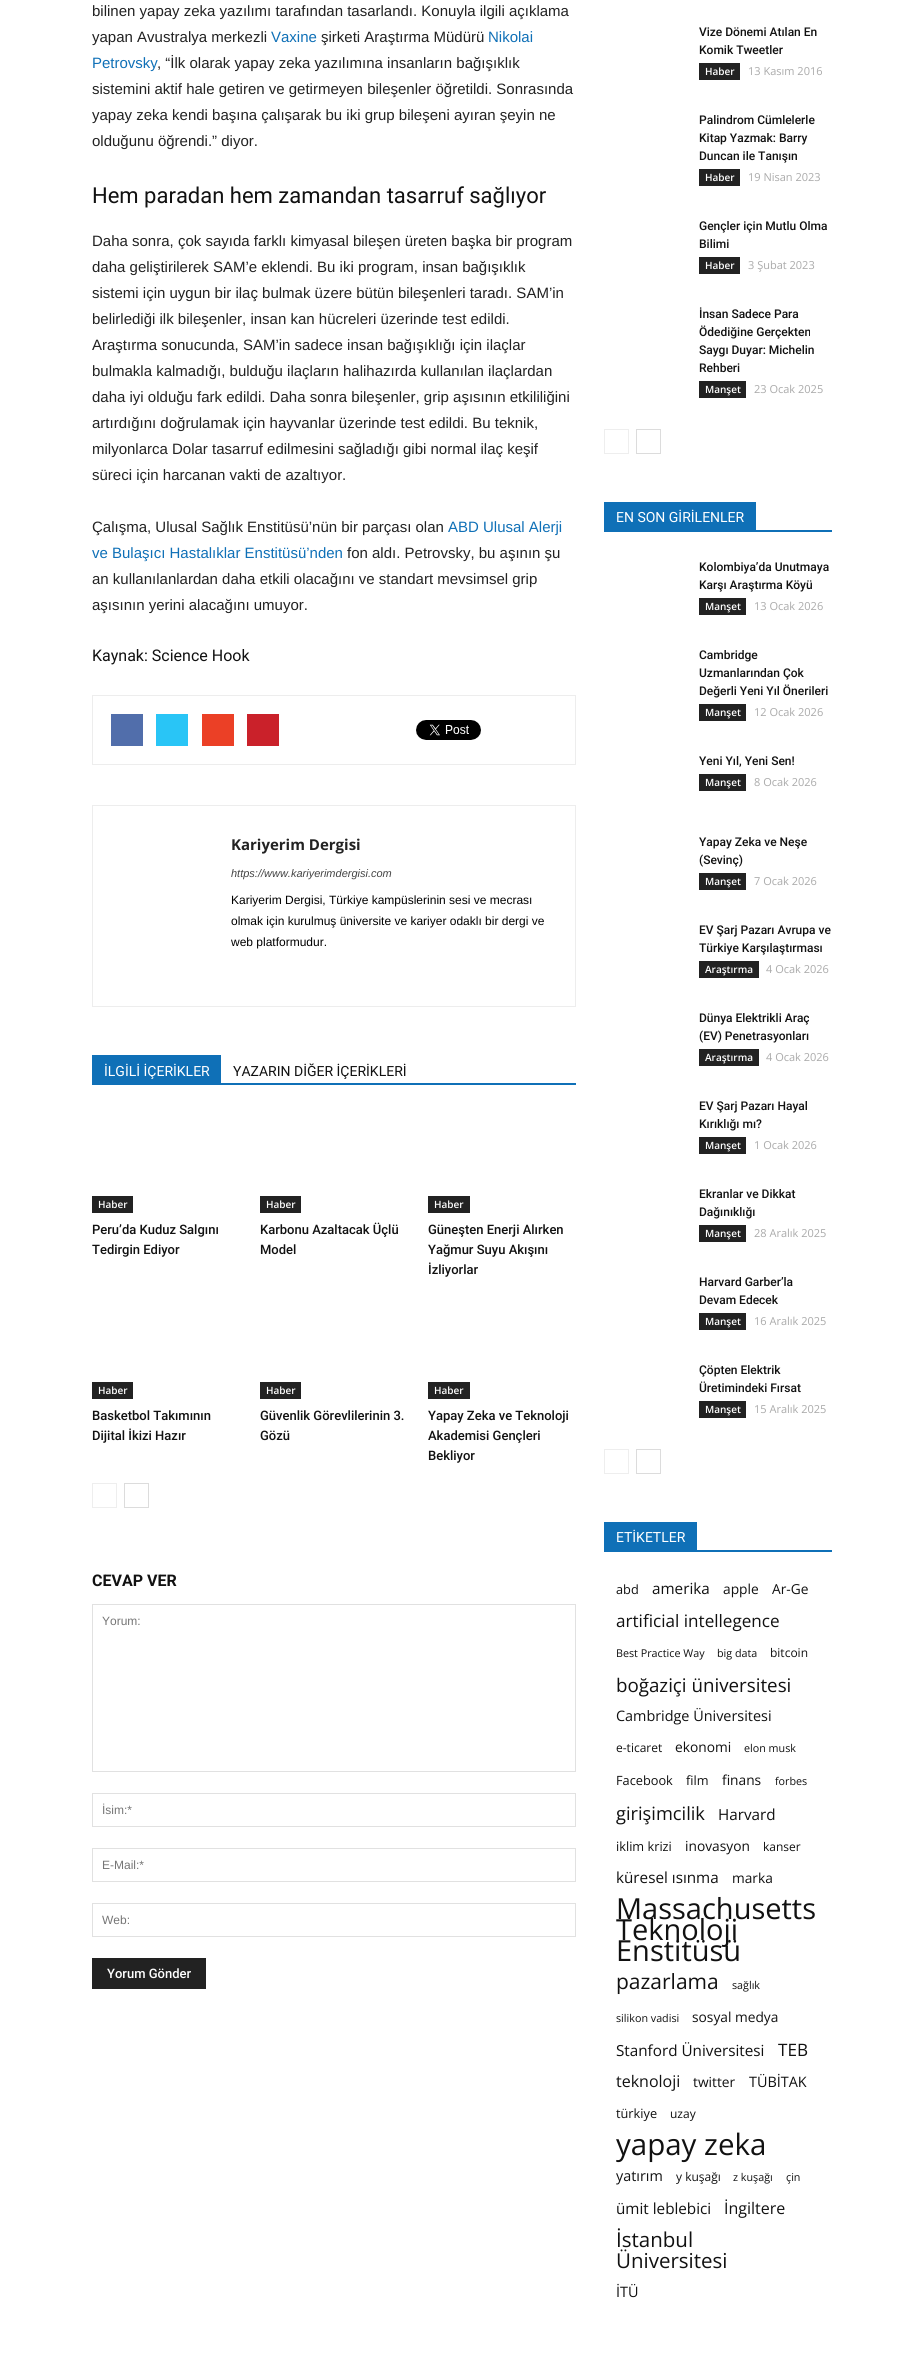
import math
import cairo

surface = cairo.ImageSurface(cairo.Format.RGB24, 923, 2361)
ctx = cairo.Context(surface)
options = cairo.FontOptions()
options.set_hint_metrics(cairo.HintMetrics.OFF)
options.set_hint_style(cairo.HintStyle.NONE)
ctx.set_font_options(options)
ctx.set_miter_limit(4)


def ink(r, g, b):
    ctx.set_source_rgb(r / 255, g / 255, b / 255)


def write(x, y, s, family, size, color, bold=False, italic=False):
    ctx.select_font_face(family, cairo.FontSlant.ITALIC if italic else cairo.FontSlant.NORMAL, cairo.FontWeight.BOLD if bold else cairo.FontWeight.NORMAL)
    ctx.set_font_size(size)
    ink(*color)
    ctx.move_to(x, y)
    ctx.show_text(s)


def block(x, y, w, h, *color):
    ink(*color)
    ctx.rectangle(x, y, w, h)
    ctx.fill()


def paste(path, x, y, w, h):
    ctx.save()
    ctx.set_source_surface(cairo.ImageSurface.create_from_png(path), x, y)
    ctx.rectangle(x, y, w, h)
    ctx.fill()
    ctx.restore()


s1 = dict(family="Liberation Sans", size=15, color=(34, 34, 34))
s2 = dict(family="Liberation Sans", size=15, color=(15, 112, 183))
s3 = dict(family="Roboto", size=22, color=(17, 17, 17))
s4 = dict(family="Roboto", size=16, color=(17, 17, 17))
s5 = dict(family="Open Sans", size=15, color=(34, 34, 34), bold=True)
s6 = dict(family="Liberation Sans", size=11, color=(68, 68, 68), italic=True)
s7 = dict(family="Liberation Sans", size=12, color=(0, 0, 0))
s8 = dict(family="Roboto", size=14, color=(255, 255, 255))
s9 = dict(family="Roboto", size=14, color=(17, 17, 17))
s10 = dict(family="Open Sans SemiBold", size=10, color=(255, 255, 255))
s11 = dict(family="Roboto Medium", size=13, color=(17, 17, 17))
s12 = dict(family="Roboto", size=16, color=(17, 17, 17), bold=True)
s13 = dict(family="Liberation Sans", size=12, color=(117, 117, 117))
s14 = dict(family="Roboto Medium", size=13, color=(255, 255, 255))
s15 = dict(family="Roboto Medium", size=12, color=(17, 17, 17))
s16 = dict(family="Open Sans", size=11, color=(170, 170, 170))
s17 = dict(family="Open Sans", size=12.75, color=(17, 17, 17))
s18 = dict(family="Open Sans", size=15.25, color=(17, 17, 17))
s19 = dict(family="Open Sans", size=13.75, color=(17, 17, 17))
s20 = dict(family="Open Sans", size=17.1, color=(17, 17, 17))
s21 = dict(family="Open Sans", size=10.75, color=(17, 17, 17))
s22 = dict(family="Open Sans", size=12, color=(17, 17, 17))
s23 = dict(family="Open Sans", size=18.75, color=(17, 17, 17))
s24 = dict(family="Open Sans", size=14.4, color=(17, 17, 17))
s25 = dict(family="Open Sans", size=18.25, color=(17, 17, 17))
s26 = dict(family="Open Sans", size=29, color=(17, 17, 17))
s27 = dict(family="Open Sans", size=21, color=(17, 17, 17))
s28 = dict(family="Open Sans", size=16, color=(17, 17, 17))
s29 = dict(family="Open Sans", size=29.5, color=(17, 17, 17))
s30 = dict(family="Open Sans", size=20.5, color=(17, 17, 17))

ink(255, 255, 255)
ctx.paint()
write(92, 16, "bilinen yapay zeka yazılımı tarafından tasarlandı. Konuyla ilgili açıklama", **s1)
write(92, 42, "yapan Avustralya merkezli", **s1)
write(271, 42, "Vaxine", **s2)
write(321, 42, "şirketi Araştırma Müdürü", **s1)
write(488, 42, "Nikolai", **s2)
write(92, 68, "Petrovsky", **s2)
write(157, 68, ", “İlk olarak yapay zeka yazılımına insanların bağışıklık", **s1)
write(92, 94, "sistemini aktif hale getiren ve getirmeyen bileşenler öğretildi. Sonrasında", **s1)
write(92, 120, "yapay zeka kendi başına çalışarak bu iki grup bileşeni ayıran şeyin ne", **s1)
write(92, 146, "olduğunu öğrendi.” diyor.", **s1)
write(92, 203, "Hem paradan hem zamandan tasarruf sağlıyor", **s3)
write(92, 246, "Daha sonra, çok sayıda farklı kimyasal bileşen üreten başka bir program", **s1)
write(92, 272, "daha geliştirilerek SAM’e eklendi. Bu iki program, insan bağışıklık", **s1)
write(92, 298, "sistemi için uygun bir ilaç bulmak üzere bütün bileşenleri taradı. SAM’in", **s1)
write(92, 324, "belirlediği ilk bileşenler, insan kan hücreleri üzerinde test edildi.", **s1)
write(92, 350, "Araştırma sonucunda, SAM’in sadece insan bağışıklığı için ilaçlar", **s1)
write(92, 376, "bulmakla kalmadığı, bulduğu ilaçların halihazırda kullanılan ilaçlardan", **s1)
write(92, 402, "daha iyi olduğu fark edildi. Daha sonra bileşenler, grip aşısının etkililiğini", **s1)
write(92, 428, "artırdığını doğrulamak için hayvanlar üzerinde test edildi. Bu teknik,", **s1)
write(92, 454, "milyonlarca Dolar tasarruf edilmesini sağladığı gibi normal ilaç keşif", **s1)
write(92, 480, "süreci için harcanan vakti de azaltıyor.", **s1)
write(92, 532, "Çalışma, Ulusal Sağlık Enstitüsü’nün bir parçası olan", **s1)
write(448, 532, "ABD Ulusal Alerji", **s2)
write(92, 558, "ve Bulaşıcı Hastalıklar Enstitüsü’nden", **s2)
write(347, 558, "fon aldı. Petrovsky, bu aşının şu", **s1)
write(92, 584, "an kullanılanlardan daha etkili olacağını ve standart mevsimsel grip", **s1)
write(92, 610, "aşısının yerini alacağını umuyor.", **s1)
write(92, 661, "Kaynak: Science Hook", **s4)
ctx.rectangle(92.5, 695.5, 483, 69)
ink(237, 237, 237)
ctx.set_line_width(1)
ctx.stroke()
block(111, 714, 32, 32, 81, 110, 171)
block(156, 714, 32, 32, 41, 197, 246)
block(202, 714, 32, 32, 235, 64, 38)
block(247, 714, 32, 32, 202, 33, 42)
paste("pic1.png", 416, 720, 65, 20)
ctx.rectangle(92.5, 805.5, 483, 201)
ink(237, 237, 237)
ctx.stroke()
write(231, 850, "Kariyerim Dergisi", **s5)
write(231, 877, "https://www.kariyerimdergisi.com", **s6)
write(231, 904, "Kariyerim Dergisi, Türkiye kampüslerinin sesi ve mecrası", **s7)
write(231, 925, "olmak için kurulmuş üniversite ve kariyer odaklı bir dergi ve", **s7)
write(231, 946, "web platformudur.", **s7)
block(92, 1083, 484, 2, 15, 112, 183)
block(92, 1055, 129, 28, 15, 112, 183)
write(104, 1076, "İLGİLİ İÇERİKLER", **s8)
write(233, 1076, "YAZARIN DİĞER İÇERİKLERİ", **s9)
block(92, 1196, 41, 17, 34, 34, 34)
write(98, 1208, "Haber", **s10)
write(92, 1234, "Peru’da Kuduz Salgını", **s11)
write(92, 1254, "Tedirgin Ediyor", **s11)
block(260, 1196, 41, 17, 34, 34, 34)
write(266, 1208, "Haber", **s10)
write(260, 1234, "Karbonu Azaltacak Üçlü", **s11)
write(260, 1254, "Model", **s11)
block(428, 1196, 42, 17, 34, 34, 34)
write(434, 1208, "Haber", **s10)
write(428, 1234, "Güneşten Enerji Alırken", **s11)
write(428, 1254, "Yağmur Suyu Akışını", **s11)
write(428, 1274, "İzliyorlar", **s11)
block(92, 1382, 41, 17, 34, 34, 34)
write(98, 1394, "Haber", **s10)
write(92, 1420, "Basketbol Takımının", **s11)
write(92, 1440, "Dijital İkizi Hazır", **s11)
block(260, 1382, 41, 17, 34, 34, 34)
write(266, 1394, "Haber", **s10)
write(260, 1420, "Güvenlik Görevlilerinin 3.", **s11)
write(260, 1440, "Gözü", **s11)
block(428, 1382, 42, 17, 34, 34, 34)
write(434, 1394, "Haber", **s10)
write(428, 1420, "Yapay Zeka ve Teknoloji", **s11)
write(428, 1440, "Akademisi Gençleri", **s11)
write(428, 1460, "Bekliyor", **s11)
ctx.rectangle(92.5, 1483.5, 24, 24)
ink(238, 238, 238)
ctx.stroke()
ctx.rectangle(124.5, 1483.5, 24, 24)
ink(220, 220, 220)
ctx.stroke()
write(92, 1586, "CEVAP VER", **s12)
ctx.rectangle(92.5, 1604.5, 483, 167)
ink(225, 225, 225)
ctx.stroke()
write(102, 1625, "Yorum:", **s13)
ctx.rectangle(92.5, 1793.5, 483, 33)
ink(225, 225, 225)
ctx.stroke()
write(102, 1814, "İsim:*", **s13)
ctx.rectangle(92.5, 1848.5, 483, 33)
ink(225, 225, 225)
ctx.stroke()
write(102, 1869, "E-Mail:*", **s13)
ctx.rectangle(92.5, 1903.5, 483, 33)
ink(225, 225, 225)
ctx.stroke()
write(102, 1924, "Web:", **s13)
block(92, 1958, 114, 31, 34, 34, 34)
write(107, 1978, "Yorum Gönder", **s14)
write(699, 36, "Vize Dönemi Atılan En", **s15)
write(699, 54, "Komik Tweetler", **s15)
block(699, 63, 41, 17, 34, 34, 34)
write(705, 75, "Haber", **s10)
write(748, 75, "13 Kasım 2016", **s16)
write(699, 124, "Palindrom Cümlelerle", **s15)
write(699, 142, "Kitap Yazmak: Barry", **s15)
write(699, 160, "Duncan ile Tanışın", **s15)
block(699, 169, 41, 17, 34, 34, 34)
write(705, 181, "Haber", **s10)
write(748, 181, "19 Nisan 2023", **s16)
write(699, 230, "Gençler için Mutlu Olma", **s15)
write(699, 248, "Bilimi", **s15)
block(699, 257, 41, 17, 34, 34, 34)
write(705, 269, "Haber", **s10)
write(748, 269, "3 Şubat 2023", **s16)
write(699, 318, "İnsan Sadece Para", **s15)
write(699, 336, "Ödediğine Gerçekten", **s15)
write(699, 354, "Saygı Duyar: Michelin", **s15)
write(699, 372, "Rehberi", **s15)
block(699, 381, 47, 17, 34, 34, 34)
write(705, 393, "Manşet", **s10)
write(754, 393, "23 Ocak 2025", **s16)
ctx.rectangle(604.5, 429.5, 24, 24)
ink(238, 238, 238)
ctx.stroke()
ctx.rectangle(636.5, 429.5, 24, 24)
ink(220, 220, 220)
ctx.stroke()
block(604, 530, 228, 2, 15, 112, 183)
block(604, 502, 152, 28, 15, 112, 183)
write(616, 522, "EN SON GİRİLENLER", **s8)
write(699, 571, "Kolombiya’da Unutmaya", **s15)
write(699, 589, "Karşı Araştırma Köyü", **s15)
block(699, 598, 47, 17, 34, 34, 34)
write(705, 610, "Manşet", **s10)
write(754, 610, "13 Ocak 2026", **s16)
write(699, 659, "Cambridge", **s15)
write(699, 677, "Uzmanlarından Çok", **s15)
write(699, 695, "Değerli Yeni Yıl Önerileri", **s15)
block(699, 704, 47, 17, 34, 34, 34)
write(705, 716, "Manşet", **s10)
write(754, 716, "12 Ocak 2026", **s16)
write(699, 765, "Yeni Yıl, Yeni Sen!", **s15)
block(699, 774, 47, 17, 34, 34, 34)
write(705, 786, "Manşet", **s10)
write(754, 786, "8 Ocak 2026", **s16)
write(699, 846, "Yapay Zeka ve Neşe", **s15)
write(699, 864, "(Sevinç)", **s15)
block(699, 873, 47, 17, 34, 34, 34)
write(705, 885, "Manşet", **s10)
write(754, 885, "7 Ocak 2026", **s16)
write(699, 934, "EV Şarj Pazarı Avrupa ve", **s15)
write(699, 952, "Türkiye Karşılaştırması", **s15)
block(699, 961, 60, 17, 34, 34, 34)
write(705, 973, "Araştırma", **s10)
write(766, 973, "4 Ocak 2026", **s16)
write(699, 1022, "Dünya Elektrikli Araç", **s15)
write(699, 1040, "(EV) Penetrasyonları", **s15)
block(699, 1049, 60, 17, 34, 34, 34)
write(705, 1061, "Araştırma", **s10)
write(766, 1061, "4 Ocak 2026", **s16)
write(699, 1110, "EV Şarj Pazarı Hayal", **s15)
write(699, 1128, "Kırıklığı mı?", **s15)
block(699, 1137, 47, 17, 34, 34, 34)
write(705, 1149, "Manşet", **s10)
write(754, 1149, "1 Ocak 2026", **s16)
write(699, 1198, "Ekranlar ve Dikkat", **s15)
write(699, 1216, "Dağınıklığı", **s15)
block(699, 1225, 47, 17, 34, 34, 34)
write(705, 1237, "Manşet", **s10)
write(754, 1237, "28 Aralık 2025", **s16)
write(699, 1286, "Harvard Garber’la", **s15)
write(699, 1304, "Devam Edecek", **s15)
block(699, 1313, 47, 17, 34, 34, 34)
write(705, 1325, "Manşet", **s10)
write(754, 1325, "16 Aralık 2025", **s16)
write(699, 1374, "Çöpten Elektrik", **s15)
write(699, 1392, "Üretimindeki Fırsat", **s15)
block(699, 1401, 47, 17, 34, 34, 34)
write(705, 1413, "Manşet", **s10)
write(754, 1413, "15 Aralık 2025", **s16)
ctx.rectangle(604.5, 1449.5, 24, 24)
ink(238, 238, 238)
ctx.stroke()
ctx.rectangle(636.5, 1449.5, 24, 24)
ink(220, 220, 220)
ctx.stroke()
block(604, 1550, 228, 2, 15, 112, 183)
block(604, 1522, 93, 28, 15, 112, 183)
write(616, 1542, "ETİKETLER", **s8)
write(616, 1594, "abd", **s17)
write(652, 1594, "amerika", **s18)
write(723, 1594, "apple", **s19)
write(772, 1594, "Ar-Ge", **s19)
write(616, 1627, "artificial intellegence", **s20)
write(616, 1657, "Best Practice Way", **s21)
write(717, 1657, "big data", **s21)
write(770, 1657, "bitcoin", **s22)
write(616, 1692, "boğaziçi üniversitesi", **s23)
write(616, 1721, "Cambridge Üniversitesi", **s24)
write(616, 1752, "e-ticaret", **s22)
write(675, 1752, "ekonomi", **s19)
write(744, 1752, "elon musk", **s21)
write(616, 1785, "Facebook", **s17)
write(686, 1785, "film", **s17)
write(722, 1785, "finans", **s19)
write(775, 1785, "forbes", **s21)
write(616, 1820, "girişimcilik", **s25)
write(718, 1820, "Harvard", **s18)
write(616, 1851, "iklim krizi", **s17)
write(685, 1851, "inovasyon", **s19)
write(763, 1851, "kanser", **s22)
write(616, 1883, "küresel ısınma", **s18)
write(732, 1883, "marka", **s19)
write(616, 1919, "Massachusetts", **s26)
write(616, 1940, "Teknoloji", **s26)
write(616, 1961, "Enstitüsü", **s26)
write(616, 1989, "pazarlama", **s27)
write(732, 1989, "sağlık", **s21)
write(616, 2022, "silikon vadisi", **s21)
write(692, 2022, "sosyal medya", **s19)
write(616, 2056, "Stanford Üniversitesi", **s18)
write(778, 2056, "TEB", **s20)
write(616, 2087, "teknoloji", **s28)
write(693, 2087, "twitter", **s19)
write(749, 2087, "TÜBİTAK", **s24)
write(616, 2118, "türkiye", **s17)
write(670, 2118, "uzay", **s22)
write(616, 2155, "yapay zeka", **s29)
write(616, 2181, "yatırım", **s24)
write(676, 2181, "y kuşağı", **s22)
write(733, 2181, "z kuşağı", **s21)
write(786, 2181, "çin", **s21)
write(616, 2214, "ümit leblebici", **s18)
write(724, 2214, "İngiltere", **s28)
write(616, 2247, "İstanbul", **s30)
write(616, 2268, "Üniversitesi", **s30)
write(616, 2297, "İTÜ", **s24)
surface.write_to_png("screenshot.png")
